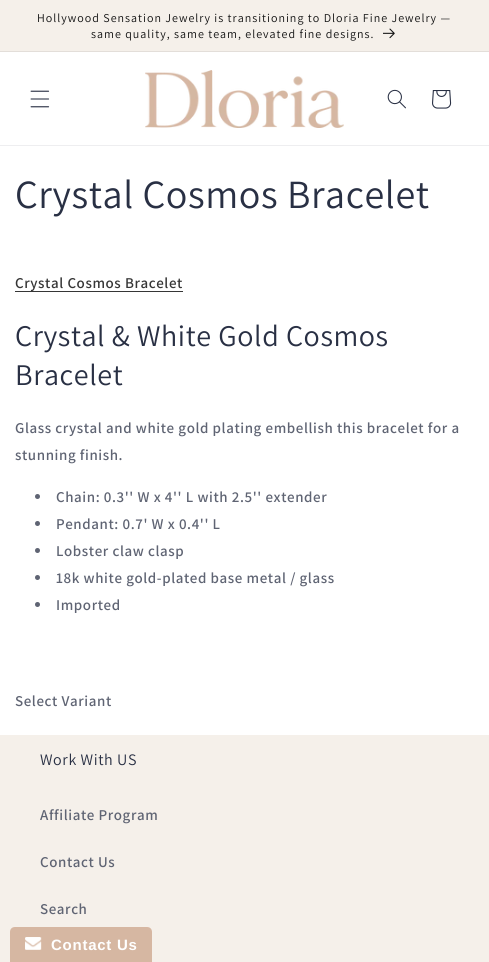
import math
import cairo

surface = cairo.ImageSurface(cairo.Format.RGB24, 489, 962)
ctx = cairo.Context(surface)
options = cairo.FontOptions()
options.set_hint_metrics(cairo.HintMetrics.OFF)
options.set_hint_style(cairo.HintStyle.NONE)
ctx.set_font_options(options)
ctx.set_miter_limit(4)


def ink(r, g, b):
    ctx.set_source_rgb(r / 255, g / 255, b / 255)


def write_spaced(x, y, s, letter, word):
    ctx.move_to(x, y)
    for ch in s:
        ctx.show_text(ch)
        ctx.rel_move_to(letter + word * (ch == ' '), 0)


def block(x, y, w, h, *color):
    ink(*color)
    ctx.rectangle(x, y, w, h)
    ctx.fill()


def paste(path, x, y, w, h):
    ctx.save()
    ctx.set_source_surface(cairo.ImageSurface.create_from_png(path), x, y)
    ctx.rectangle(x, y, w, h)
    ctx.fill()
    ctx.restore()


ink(255, 255, 255)
ctx.paint()
block(0, 0, 489, 51, 245, 240, 234)
block(0, 51, 489, 1, 227, 222, 217)
ctx.select_font_face("Assistant")
ctx.set_font_size(12)
ink(18, 18, 18)
write_spaced(37, 22, "Hollywood Sensation Jewelry is transitioning to Dloria Fine Jewelry —", 1, 0)
write_spaced(91, 38, "same quality, same team, elevated fine designs.", 1, 0)
paste("pic1.png", 383, 28, 12, 11)
block(0, 145, 489, 1, 238, 238, 240)
paste("pic2.png", 30, 90, 20, 18)
paste("pic3.png", 145, 70, 199, 58)
paste("pic4.png", 387, 89, 19, 20)
paste("pic5.png", 432, 90, 20, 19)
ctx.set_font_size(40)
ink(41, 48, 68)
write_spaced(15, 208, "Crystal Cosmos Bracelet", 0.6, 0)
block(15, 291, 168, 1, 54, 54, 54)
ctx.select_font_face("Assistant SemiBold")
ctx.set_font_size(15)
write_spaced(15, 288, "Crystal Cosmos Bracelet", 0.6, 0)
ctx.select_font_face("Assistant")
ctx.set_font_size(30)
ink(41, 48, 68)
write_spaced(15, 346, "Crystal & White Gold Cosmos", 0.6, 0)
write_spaced(15, 385, "Bracelet", 0.6, 0)
ctx.select_font_face("Assistant SemiBold")
ctx.set_font_size(15)
ink(95, 100, 115)
write_spaced(15, 433, "Glass crystal and white gold plating embellish this bracelet for a", 0.6, 0)
write_spaced(15, 460, "stunning finish.", 0.6, 0)
ctx.new_path()
ctx.arc(37.5, 496.5, 2.5, 0, 2 * math.pi)
ctx.fill()
write_spaced(56, 502, "Chain: 0.3'' W x 4'' L with 2.5'' extender", 0.6, 0)
ctx.new_path()
ctx.arc(37.5, 523.5, 2.5, 0, 2 * math.pi)
ctx.fill()
write_spaced(56, 529, "Pendant: 0.7' W x 0.4'' L", 0.6, 0)
ctx.new_path()
ctx.arc(37.5, 550.5, 2.5, 0, 2 * math.pi)
ctx.fill()
write_spaced(56, 556, "Lobster claw clasp", 0.6, 0)
ctx.new_path()
ctx.arc(37.5, 577.5, 2.5, 0, 2 * math.pi)
ctx.fill()
write_spaced(56, 583, "18k white gold-plated base metal / glass", 0.6, 0)
ctx.new_path()
ctx.arc(37.5, 604.5, 2.5, 0, 2 * math.pi)
ctx.fill()
write_spaced(56, 610, "Imported", 0.6, 0)
write_spaced(15, 706, "Select Variant", 0.6, 0)
block(0, 735, 489, 227, 245, 240, 234)
ctx.select_font_face("Assistant")
ctx.set_font_size(16)
ink(41, 48, 68)
write_spaced(40, 765, "Work With US", 0.6, 0)
ctx.select_font_face("Assistant SemiBold")
ctx.set_font_size(15)
ink(95, 100, 115)
write_spaced(40, 820, "Affiliate Program", 0.6, 0)
write_spaced(40, 867, "Contact Us", 0.6, 0)
write_spaced(40, 914, "Search", 0.6, 0)
ink(214, 183, 162)
ctx.new_path()
ctx.move_to(15, 927)
ctx.line_to(147, 927)
ctx.curve_to(150, 927, 152, 929, 152, 932)
ctx.line_to(152, 962)
ctx.line_to(10, 962)
ctx.line_to(10, 932)
ctx.curve_to(10, 929, 12, 927, 15, 927)
ctx.close_path()
ctx.fill()
paste("pic6.png", 25, 937, 17, 13)
ctx.select_font_face("Liberation Sans", cairo.FontSlant.NORMAL, cairo.FontWeight.BOLD)
ink(255, 255, 255)
write_spaced(51, 950, "Contact Us", 0.75, 0)
surface.write_to_png("screenshot.png")
